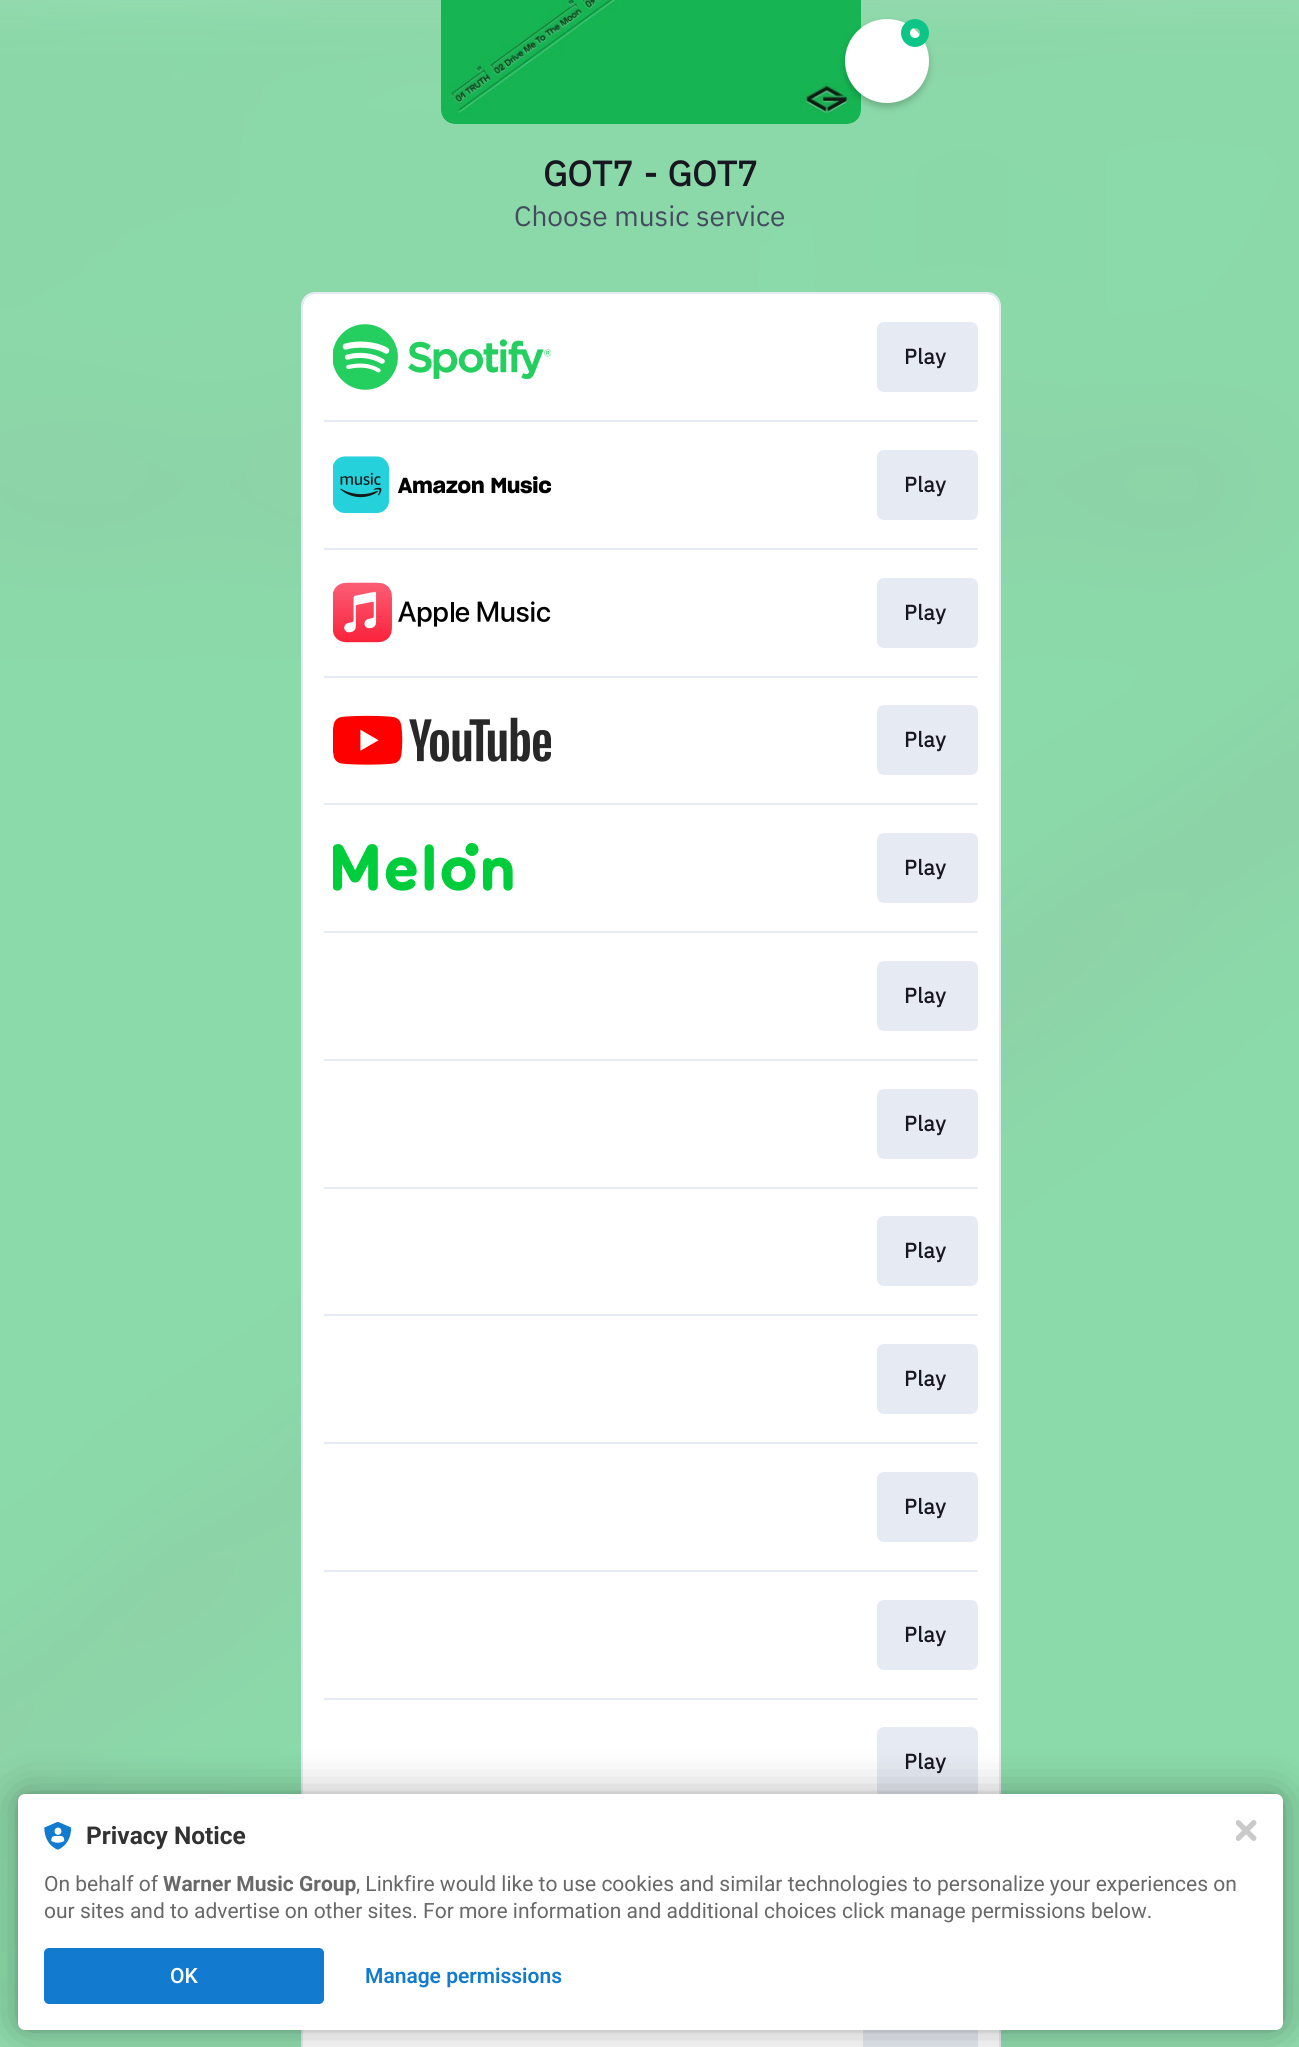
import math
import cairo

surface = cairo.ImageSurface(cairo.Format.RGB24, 1299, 2047)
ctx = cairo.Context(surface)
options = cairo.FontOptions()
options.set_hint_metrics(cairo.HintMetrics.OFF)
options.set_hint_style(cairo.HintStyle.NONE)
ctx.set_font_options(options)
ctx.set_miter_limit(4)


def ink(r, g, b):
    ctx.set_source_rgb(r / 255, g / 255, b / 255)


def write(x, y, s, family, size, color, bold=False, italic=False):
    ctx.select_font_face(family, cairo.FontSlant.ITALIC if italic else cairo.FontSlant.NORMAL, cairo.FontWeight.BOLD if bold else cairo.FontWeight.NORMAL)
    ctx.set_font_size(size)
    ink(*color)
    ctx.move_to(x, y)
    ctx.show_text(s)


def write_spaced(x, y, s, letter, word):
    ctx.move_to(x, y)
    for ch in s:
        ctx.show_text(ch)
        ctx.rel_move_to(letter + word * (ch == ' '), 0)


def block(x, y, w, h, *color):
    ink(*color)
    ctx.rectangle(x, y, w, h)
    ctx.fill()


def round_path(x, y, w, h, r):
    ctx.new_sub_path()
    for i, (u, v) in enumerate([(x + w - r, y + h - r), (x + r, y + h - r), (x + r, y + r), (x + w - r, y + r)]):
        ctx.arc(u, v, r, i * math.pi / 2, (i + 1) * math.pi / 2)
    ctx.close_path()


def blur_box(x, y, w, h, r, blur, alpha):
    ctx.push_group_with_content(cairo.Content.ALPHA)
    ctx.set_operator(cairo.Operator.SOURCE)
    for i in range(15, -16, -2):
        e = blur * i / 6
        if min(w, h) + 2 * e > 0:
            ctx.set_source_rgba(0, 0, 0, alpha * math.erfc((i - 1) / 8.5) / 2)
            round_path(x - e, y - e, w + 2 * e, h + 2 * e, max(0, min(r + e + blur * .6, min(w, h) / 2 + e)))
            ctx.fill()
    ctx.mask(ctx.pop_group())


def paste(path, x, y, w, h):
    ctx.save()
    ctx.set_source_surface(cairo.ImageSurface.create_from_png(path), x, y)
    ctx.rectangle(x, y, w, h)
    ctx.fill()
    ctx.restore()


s1 = dict(family="IBM Plex Sans", size=28, color=(69, 75, 95))
s2 = dict(family="Roboto", size=24.5, color=(50, 50, 50), bold=True)
s3 = dict(family="Roboto", size=21, color=(104, 104, 104))
s4 = dict(family="Roboto", size=21, color=(104, 104, 104), bold=True)
s5 = dict(family="Roboto Medium", size=21, color=(255, 255, 255))
s6 = dict(family="Roboto SemiBold", size=21, color=(19, 123, 207))

ink(255, 255, 255)
ctx.paint()
paste("pic1.png", 0, 0, 1299, 2047)
paste("pic2.png", 441, 0, 420, 124)
ink(0, 0, 0)
blur_box(845, 23, 84, 84, 42, 3.5, 0.2)
ink(255, 255, 255)
ctx.arc(887, 61, 42, 0, 2 * math.pi)
ctx.fill()
ctx.arc(915, 33, 9.5, 0, 2 * math.pi)
ink(13, 197, 135)
ctx.set_line_width(9)
ctx.stroke()
ctx.select_font_face("IBM Plex Sans", cairo.FontSlant.NORMAL, cairo.FontWeight.BOLD)
ctx.set_font_size(35)
ink(24, 23, 33)
write_spaced(543, 186, "GOT7 - GOT7", 0, 2)
write(514, 226, "Choose music service", **s1)
round_path(302, 293, 698, 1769, 13)
ink(230, 234, 242)
ctx.set_line_width(2)
ctx.stroke()
ink(255, 255, 255)
round_path(303, 294, 696, 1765, 12)
ctx.fill()
paste("pic3.png", 333, 324, 218, 66)
ink(230, 234, 242)
round_path(877, 322, 101, 70, 7)
ctx.fill()
ctx.select_font_face("IBM Plex Sans", cairo.FontSlant.NORMAL, cairo.FontWeight.BOLD)
ctx.set_font_size(21)
ink(24, 23, 33)
write_spaced(904, 364, "Play", 0.5, 0)
block(324, 420, 654, 2, 230, 234, 242)
paste("pic4.png", 333, 456, 218, 58)
round_path(877, 450, 101, 70, 7)
ctx.fill()
ink(24, 23, 33)
write_spaced(904, 492, "Play", 0.5, 0)
block(324, 548, 654, 2, 230, 234, 242)
paste("pic5.png", 333, 582, 218, 61)
round_path(877, 578, 101, 70, 7)
ctx.fill()
ink(24, 23, 33)
write_spaced(904, 620, "Play", 0.5, 0)
block(324, 676, 654, 2, 230, 234, 242)
paste("pic6.png", 333, 715, 218, 50)
round_path(877, 705, 101, 70, 7)
ctx.fill()
ink(24, 23, 33)
write_spaced(904, 747, "Play", 0.5, 0)
block(324, 803, 654, 2, 230, 234, 242)
paste("pic7.png", 333, 843, 180, 48)
round_path(877, 833, 101, 70, 7)
ctx.fill()
ink(24, 23, 33)
write_spaced(904, 875, "Play", 0.5, 0)
block(324, 931, 654, 2, 230, 234, 242)
round_path(877, 961, 101, 70, 7)
ctx.fill()
ink(24, 23, 33)
write_spaced(904, 1003, "Play", 0.5, 0)
block(324, 1059, 654, 2, 230, 234, 242)
round_path(877, 1089, 101, 70, 7)
ctx.fill()
ink(24, 23, 33)
write_spaced(904, 1131, "Play", 0.5, 0)
block(324, 1187, 654, 2, 230, 234, 242)
round_path(877, 1216, 101, 70, 7)
ctx.fill()
ink(24, 23, 33)
write_spaced(904, 1258, "Play", 0.5, 0)
block(324, 1314, 654, 2, 230, 234, 242)
round_path(877, 1344, 101, 70, 7)
ctx.fill()
ink(24, 23, 33)
write_spaced(904, 1386, "Play", 0.5, 0)
block(324, 1442, 654, 2, 230, 234, 242)
round_path(877, 1472, 101, 70, 7)
ctx.fill()
ink(24, 23, 33)
write_spaced(904, 1514, "Play", 0.5, 0)
block(324, 1570, 654, 2, 230, 234, 242)
round_path(877, 1600, 101, 70, 7)
ctx.fill()
ink(24, 23, 33)
write_spaced(904, 1642, "Play", 0.5, 0)
block(324, 1698, 654, 2, 230, 234, 242)
round_path(877, 1727, 101, 70, 7)
ctx.fill()
ink(24, 23, 33)
write_spaced(904, 1769, "Play", 0.5, 0)
block(863, 2030, 115, 17, 230, 234, 242)
ink(0, 0, 0)
blur_box(18, 1794, 1265, 236, 7, 3.5, 0.12)
blur_box(18, 1794, 1265, 236, 7, 21, 0.3)
ink(255, 255, 255)
round_path(18, 1794, 1265, 236, 7)
ctx.fill()
paste("pic8.png", 44, 1822, 28, 28)
write(86, 1844, "Privacy Notice", **s2)
write(44, 1891, "On behalf of", **s3)
write(163, 1891, "Warner Music Group", **s4)
write(356, 1891, ", Linkfire would like to use cookies and similar technologies to personalize your experiences on", **s3)
write(44, 1918, "our sites and to advertise on other sites. For more information and additional choices click manage permissions below.", **s3)
ink(19, 123, 207)
round_path(44, 1948, 280, 56, 5)
ctx.fill()
write(170, 1983, "OK", **s5)
write(365, 1983, "Manage permissions", **s6)
paste("pic9.png", 1236, 1820, 21, 21)
surface.write_to_png("screenshot.png")
